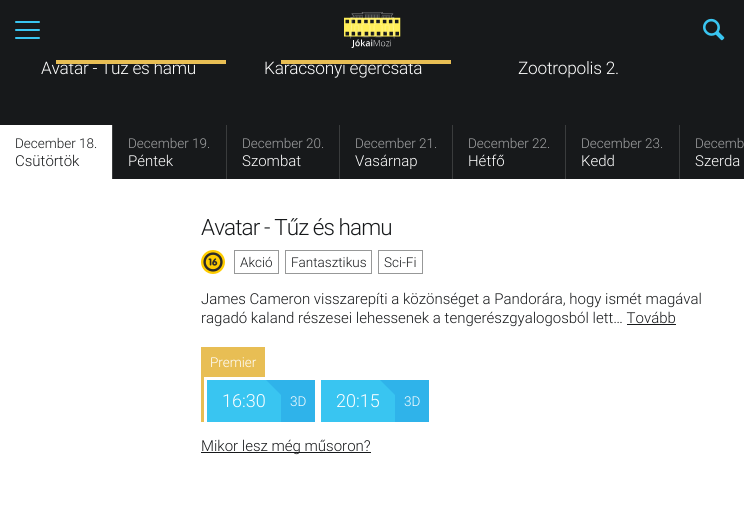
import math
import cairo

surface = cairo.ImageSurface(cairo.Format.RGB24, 744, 505)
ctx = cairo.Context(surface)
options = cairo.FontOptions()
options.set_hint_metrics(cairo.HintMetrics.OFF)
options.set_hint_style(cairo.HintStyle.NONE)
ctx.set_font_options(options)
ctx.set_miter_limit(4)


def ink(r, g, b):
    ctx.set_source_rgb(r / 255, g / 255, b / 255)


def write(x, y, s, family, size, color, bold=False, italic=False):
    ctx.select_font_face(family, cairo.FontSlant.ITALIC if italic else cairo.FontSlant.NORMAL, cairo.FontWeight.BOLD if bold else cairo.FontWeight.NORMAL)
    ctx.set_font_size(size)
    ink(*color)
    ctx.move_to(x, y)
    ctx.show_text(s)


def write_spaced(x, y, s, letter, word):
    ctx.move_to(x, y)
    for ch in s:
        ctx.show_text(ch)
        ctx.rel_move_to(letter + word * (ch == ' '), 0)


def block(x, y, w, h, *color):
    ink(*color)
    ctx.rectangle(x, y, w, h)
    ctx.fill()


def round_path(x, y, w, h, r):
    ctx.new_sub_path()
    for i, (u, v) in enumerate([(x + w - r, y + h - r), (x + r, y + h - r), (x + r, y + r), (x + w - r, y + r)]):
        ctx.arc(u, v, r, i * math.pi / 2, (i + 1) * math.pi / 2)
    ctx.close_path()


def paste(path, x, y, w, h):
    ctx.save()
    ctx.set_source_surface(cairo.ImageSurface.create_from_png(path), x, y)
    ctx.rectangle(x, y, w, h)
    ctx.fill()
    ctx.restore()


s1 = dict(family="Roboto Light", size=13.5, color=(23, 25, 27))
s2 = dict(family="Roboto Light", size=15, color=(23, 25, 27))
s3 = dict(family="Roboto Light", size=13.5, color=(162, 163, 164))
s4 = dict(family="Roboto Light", size=15, color=(255, 255, 255))
s5 = dict(family="Roboto Light", size=13.5, color=(255, 255, 255))
s6 = dict(family="Roboto Light", size=18, color=(255, 255, 255))

ink(23, 25, 27)
ctx.paint()
ink(57, 197, 241)
round_path(15, 21, 25, 2, 1)
ctx.fill()
paste("pic1.png", 344, 12, 57, 36)
paste("pic2.png", 703, 18, 22, 23)
round_path(15, 29, 25, 2, 1)
ctx.fill()
round_path(15, 37, 25, 2, 1)
ctx.fill()
ctx.select_font_face("Roboto Light")
ctx.set_font_size(17.25)
ink(255, 255, 255)
write_spaced(41, 74, "Avatar - Tűz és hamu", -0.25, 0)
block(56, 60, 170, 4, 232, 190, 84)
ink(255, 255, 255)
write_spaced(264, 74, "Karácsonyi egércsata", -0.25, 0)
block(281, 60, 170, 4, 232, 190, 84)
ink(255, 255, 255)
write_spaced(518, 74, "Zootropolis 2.", -0.25, 0)
block(0, 125, 112, 54, 255, 255, 255)
write(15, 148, "December 18.", **s1)
write(15, 166, "Csütörtök", **s2)
block(112, 125, 1, 54, 58, 60, 61)
write(128, 148, "December 19.", **s3)
write(128, 166, "Péntek", **s4)
block(226, 125, 1, 54, 58, 60, 61)
write(242, 148, "December 20.", **s3)
write(242, 166, "Szombat", **s4)
block(339, 125, 1, 54, 58, 60, 61)
write(355, 148, "December 21.", **s3)
write(355, 166, "Vasárnap", **s4)
block(452, 125, 1, 54, 58, 60, 61)
write(468, 148, "December 22.", **s3)
write(468, 166, "Hétfő", **s4)
block(565, 125, 1, 54, 58, 60, 61)
write(581, 148, "December 23.", **s3)
write(581, 166, "Kedd", **s4)
block(679, 125, 1, 54, 58, 60, 61)
write(695, 148, "Decemb", **s3)
write(695, 166, "Szerda", **s4)
block(0, 179, 744, 326, 255, 255, 255)
ctx.set_font_size(22.5)
ink(23, 25, 27)
write_spaced(201, 235, "Avatar - Tűz és hamu", -0.9, 0)
paste("pic3.png", 201, 250, 24, 24)
ctx.rectangle(234.5, 250.5, 44, 23)
ink(151, 152, 152)
ctx.set_line_width(1)
ctx.stroke()
write(240, 267, "Akció", **s1)
ctx.rectangle(285.5, 250.5, 86, 23)
ink(151, 152, 152)
ctx.stroke()
write(291, 267, "Fantasztikus", **s1)
ctx.rectangle(378.5, 250.5, 44, 23)
ink(151, 152, 152)
ctx.stroke()
write(384, 267, "Sci-Fi", **s1)
write(201, 304, "James Cameron visszarepíti a közönséget a Pandorára, hogy ismét magával", **s2)
write(201, 323, "ragadó kaland részesei lehessenek a tengerészgyalogosból lett… Tovább", **s2)
block(627, 324, 49, 1, 23, 25, 27)
block(201, 377, 3, 45, 232, 190, 84)
block(201, 347, 64, 30, 232, 190, 84)
write(210, 367, "Premier", **s5)
block(207, 380, 74, 42, 57, 197, 241)
write(222, 407, "16:30", **s6)
block(281, 380, 34, 42, 47, 179, 234)
ctx.new_path()
ctx.move_to(281, 380)
ctx.line_to(281, 395)
ctx.line_to(266, 380)
ctx.close_path()
ctx.fill()
write(290, 406, "3D", **s5)
block(321, 380, 74, 42, 57, 197, 241)
write(336, 407, "20:15", **s6)
block(395, 380, 34, 42, 47, 179, 234)
ctx.new_path()
ctx.move_to(395, 380)
ctx.line_to(395, 395)
ctx.line_to(380, 380)
ctx.close_path()
ctx.fill()
write(404, 406, "3D", **s5)
block(201, 452, 170, 1, 23, 25, 27)
write(201, 451, "Mikor lesz még műsoron?", **s2)
surface.write_to_png("screenshot.png")
